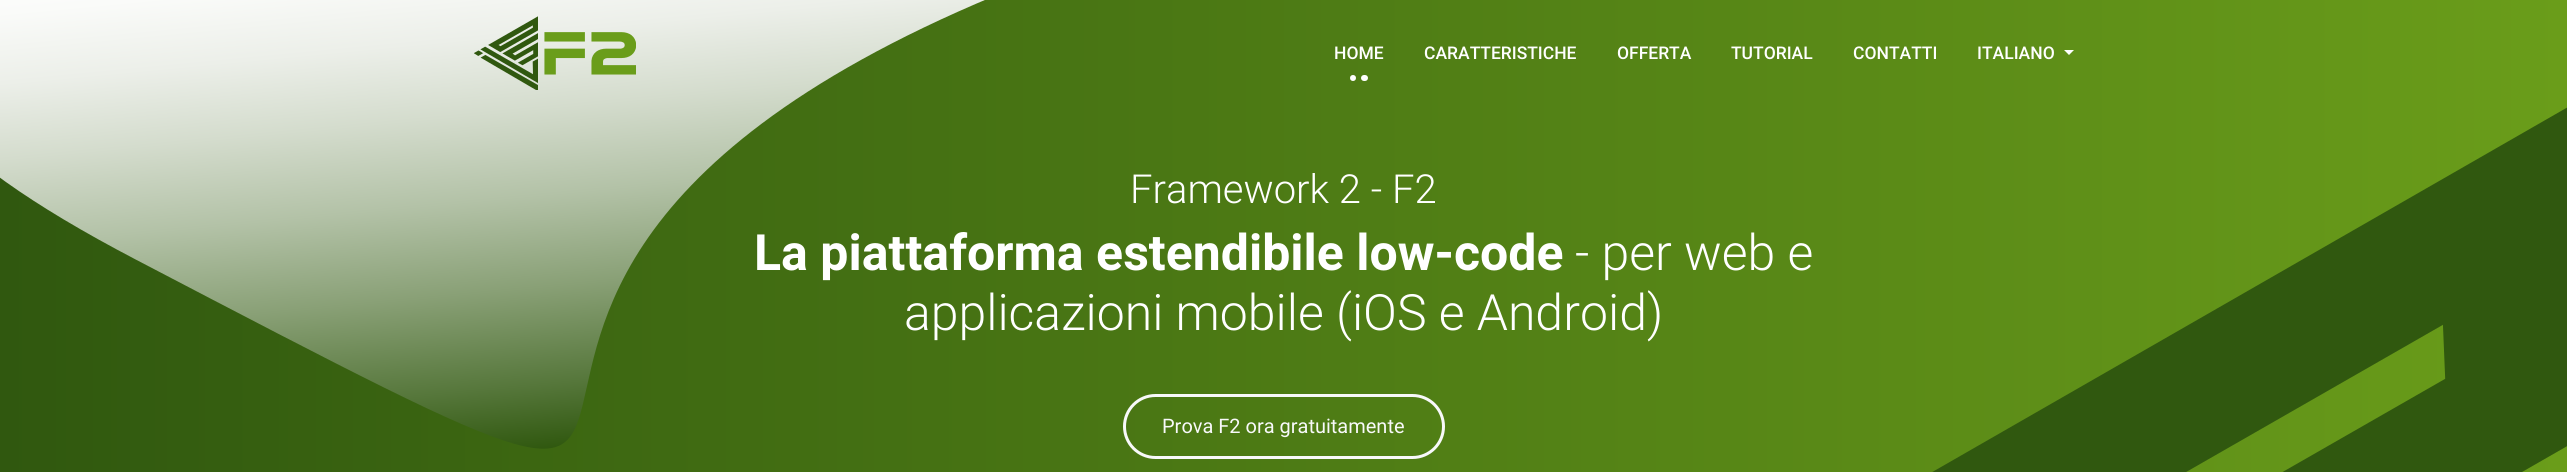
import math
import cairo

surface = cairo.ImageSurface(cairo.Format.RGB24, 2567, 472)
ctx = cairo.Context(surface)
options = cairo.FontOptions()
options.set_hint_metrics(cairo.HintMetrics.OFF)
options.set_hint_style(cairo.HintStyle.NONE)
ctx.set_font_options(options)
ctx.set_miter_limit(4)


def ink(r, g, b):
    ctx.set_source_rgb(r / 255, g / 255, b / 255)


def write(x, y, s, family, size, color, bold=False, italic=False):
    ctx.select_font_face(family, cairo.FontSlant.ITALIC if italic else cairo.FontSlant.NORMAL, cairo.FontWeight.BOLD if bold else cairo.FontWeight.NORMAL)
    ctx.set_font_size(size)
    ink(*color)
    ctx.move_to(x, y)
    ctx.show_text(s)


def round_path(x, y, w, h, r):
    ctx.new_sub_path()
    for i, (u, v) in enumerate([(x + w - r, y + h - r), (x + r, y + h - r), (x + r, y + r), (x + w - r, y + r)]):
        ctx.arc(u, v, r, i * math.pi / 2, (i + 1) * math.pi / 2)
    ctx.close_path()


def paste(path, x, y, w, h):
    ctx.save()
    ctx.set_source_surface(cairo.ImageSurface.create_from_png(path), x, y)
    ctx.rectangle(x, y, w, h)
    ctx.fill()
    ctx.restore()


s1 = dict(family="Roboto Medium", size=17.5, color=(255, 255, 255))
s2 = dict(family="Roboto Light", size=40, color=(255, 255, 255))
s3 = dict(family="Roboto", size=50, color=(255, 255, 255), bold=True)
s4 = dict(family="Roboto Light", size=50, color=(255, 255, 255))
s5 = dict(family="Roboto", size=20, color=(248, 249, 250))

ink(255, 255, 255)
ctx.paint()
paste("pic2.png", 0, 0, 2567, 472)
paste("pic1.png", 474, 16, 162, 74)
write(1334, 59, "HOME", **s1)
ctx.new_path()
ctx.arc(1353, 78, 3, 0, 2 * math.pi)
ctx.fill()
round_path(1361, 75, 7, 6, 3)
ctx.fill()
write(1424, 59, "CARATTERISTICHE", **s1)
write(1617, 59, "OFFERTA", **s1)
write(1731, 59, "TUTORIAL", **s1)
write(1853, 59, "CONTATTI", **s1)
write(1977, 59, "ITALIANO", **s1)
ctx.new_path()
ctx.move_to(2064, 50)
ctx.line_to(2074, 50)
ctx.line_to(2069, 55)
ctx.close_path()
ctx.fill()
write(1130, 203, "Framework 2 - F2", **s2)
write(754, 270, "La piattaforma estendibile low-code", **s3)
write(1575, 270, "- per web e", **s4)
write(904, 330, "applicazioni mobile (iOS e Android)", **s4)
round_path(1124.5, 395.5, 319, 62, 31)
ink(248, 249, 250)
ctx.set_line_width(3)
ctx.stroke()
write(1162, 433, "Prova F2 ora gratuitamente", **s5)
surface.write_to_png("screenshot.png")
